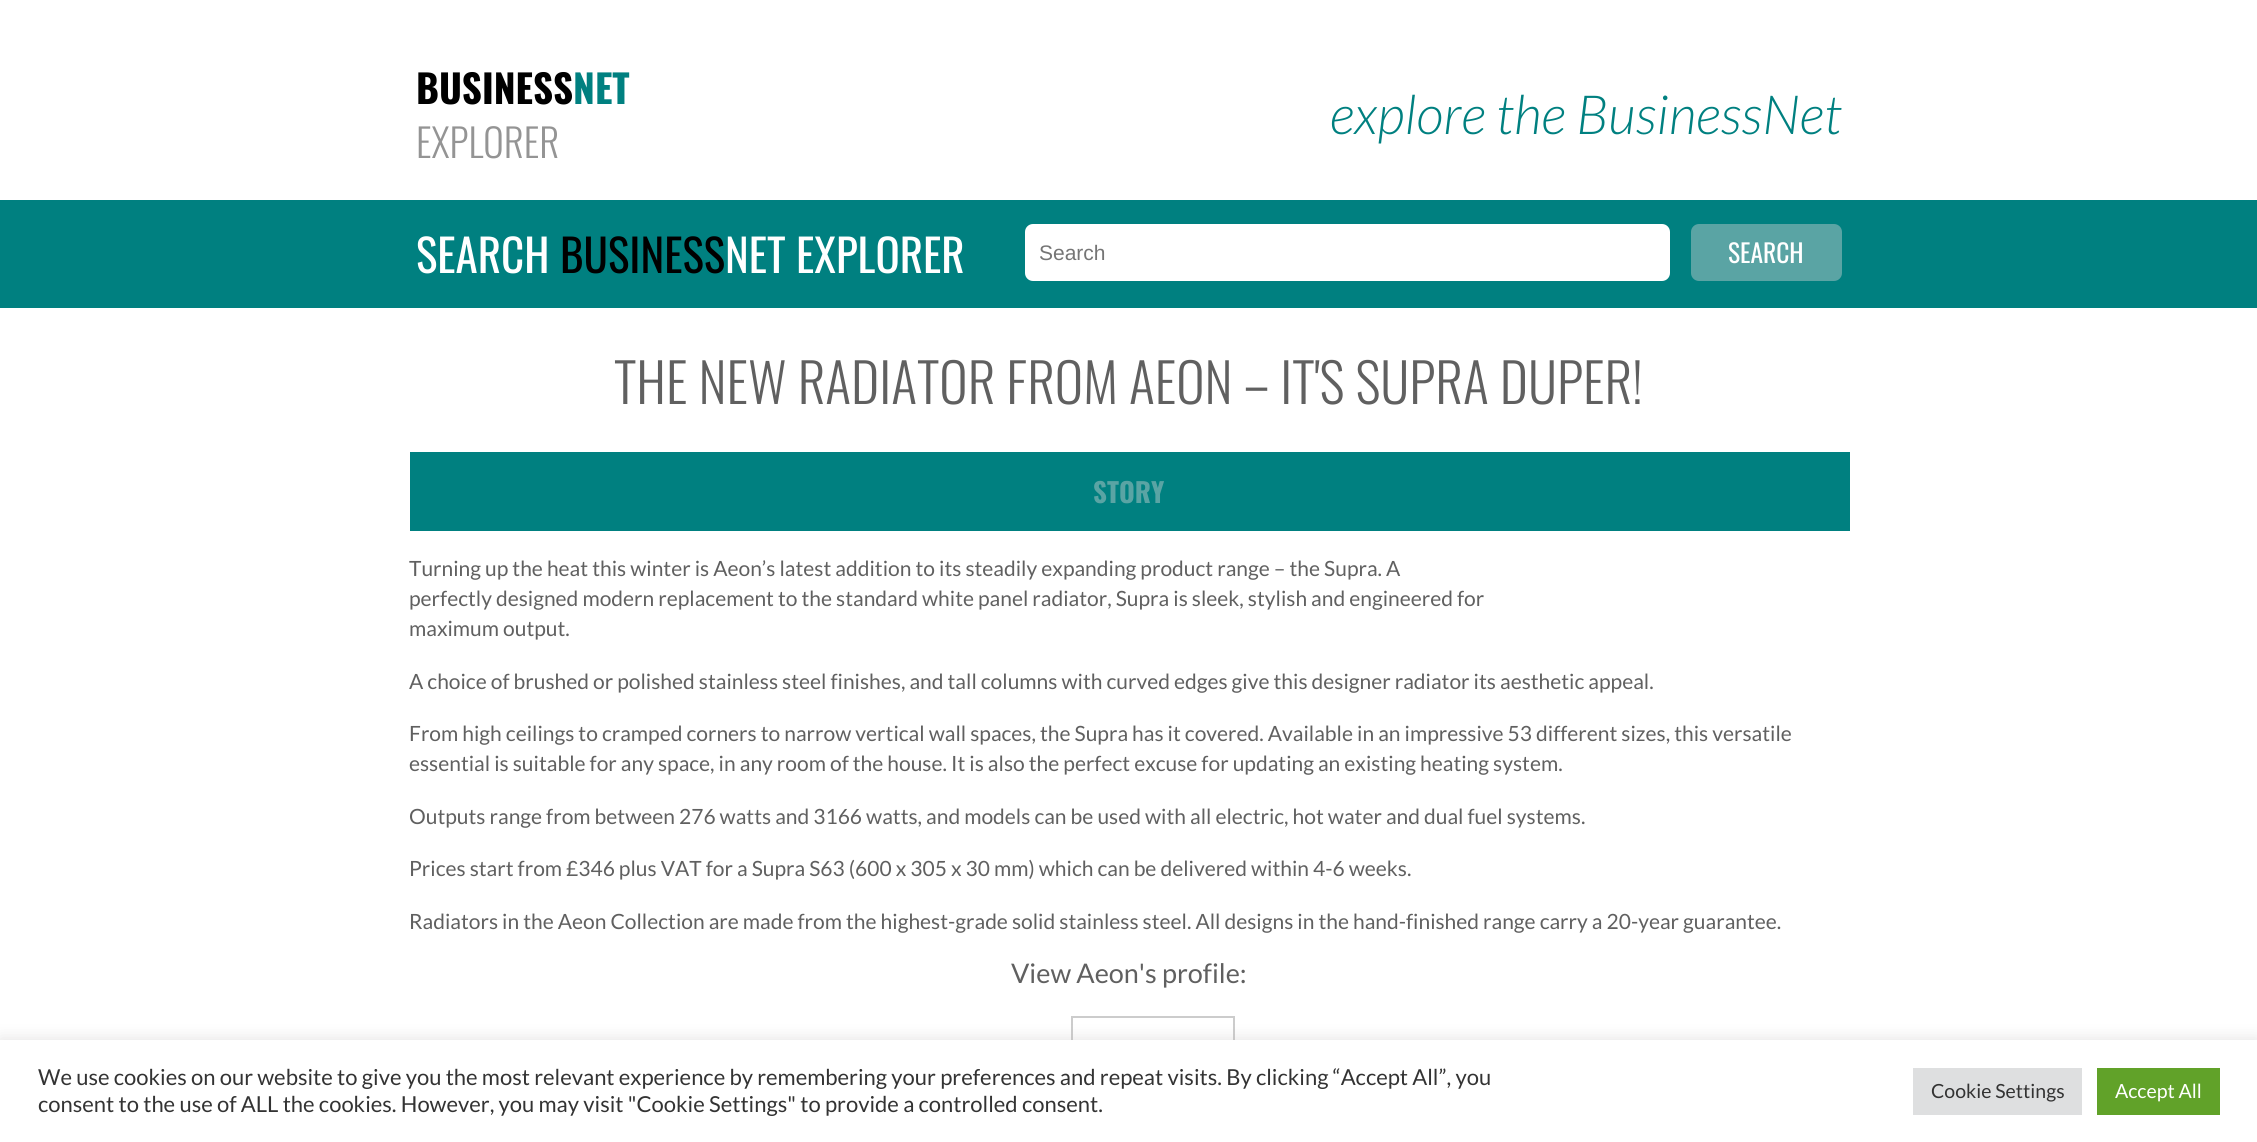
import math
import cairo

surface = cairo.ImageSurface(cairo.Format.RGB24, 2257, 1142)
ctx = cairo.Context(surface)
options = cairo.FontOptions()
options.set_hint_metrics(cairo.HintMetrics.OFF)
options.set_hint_style(cairo.HintStyle.NONE)
ctx.set_font_options(options)
ctx.set_miter_limit(4)


def ink(r, g, b):
    ctx.set_source_rgb(r / 255, g / 255, b / 255)


def write(x, y, s, family, size, color, bold=False, italic=False):
    ctx.select_font_face(family, cairo.FontSlant.ITALIC if italic else cairo.FontSlant.NORMAL, cairo.FontWeight.BOLD if bold else cairo.FontWeight.NORMAL)
    ctx.set_font_size(size)
    ink(*color)
    ctx.move_to(x, y)
    ctx.show_text(s)


def block(x, y, w, h, *color):
    ink(*color)
    ctx.rectangle(x, y, w, h)
    ctx.fill()


def round_path(x, y, w, h, r):
    ctx.new_sub_path()
    for i, (u, v) in enumerate([(x + w - r, y + h - r), (x + r, y + h - r), (x + r, y + r), (x + w - r, y + r)]):
        ctx.arc(u, v, r, i * math.pi / 2, (i + 1) * math.pi / 2)
    ctx.close_path()


def blur_box(x, y, w, h, r, blur, alpha):
    ctx.push_group_with_content(cairo.Content.ALPHA)
    ctx.set_operator(cairo.Operator.SOURCE)
    for i in range(15, -16, -2):
        e = blur * i / 6
        if min(w, h) + 2 * e > 0:
            ctx.set_source_rgba(0, 0, 0, alpha * math.erfc((i - 1) / 8.5) / 2)
            round_path(x - e, y - e, w + 2 * e, h + 2 * e, max(0, min(r + e + blur * .6, min(w, h) / 2 + e)))
            ctx.fill()
    ctx.mask(ctx.pop_group())


s1 = dict(family="Oswald", size=39, color=(0, 0, 0), bold=True)
s2 = dict(family="Oswald", size=39, color=(0, 128, 128), bold=True)
s3 = dict(family="Oswald Light", size=39, color=(148, 148, 148))
s4 = dict(family="Lato Light", size=54, color=(0, 128, 128), italic=True)
s5 = dict(family="Oswald", size=45, color=(255, 255, 255))
s6 = dict(family="Oswald", size=45, color=(0, 0, 0))
s7 = dict(family="Liberation Sans", size=21, color=(117, 117, 117))
s8 = dict(family="Oswald", size=25.5, color=(255, 255, 255))
s9 = dict(family="Oswald Light", size=54, color=(96, 96, 96))
s10 = dict(family="Oswald", size=27, color=(90, 164, 164), bold=True)
s11 = dict(family="Lato", size=21, color=(96, 96, 96))
s12 = dict(family="Lato", size=27, color=(96, 96, 96))
s13 = dict(family="Lato", size=22, color=(51, 51, 51))
s14 = dict(family="Lato", size=19.5, color=(51, 51, 51))
s15 = dict(family="Lato", size=19.5, color=(255, 255, 255))

ink(255, 255, 255)
ctx.paint()
write(416, 104, "BUSINESS", **s1)
write(573, 104, "NET", **s2)
write(416, 158, "EXPLORER", **s3)
write(1330, 134, "explore the BusinessNet", **s4)
block(0, 200, 2257, 108, 0, 128, 128)
write(416, 273, "SEARCH", **s5)
write(560, 273, "BUSINESS", **s6)
write(725, 273, "NET EXPLORER", **s5)
round_path(1025, 224, 645, 57, 8)
ctx.fill()
write(1039, 260, "Search", **s7)
ink(90, 164, 164)
round_path(1691, 224, 151, 57, 8)
ctx.fill()
write(1728, 263, "SEARCH", **s8)
write(614, 404, "THE NEW RADIATOR FROM AEON – IT'S SUPRA DUPER!", **s9)
block(410, 452, 1440, 79, 0, 128, 128)
write(1093, 503, "STORY", **s10)
write(409, 576, "Turning up the heat this winter is Aeon’s latest addition to its steadily expanding product range – the Supra. A", **s11)
write(409, 606, "perfectly designed modern replacement to the standard white panel radiator, Supra is sleek, stylish and engineered for", **s11)
write(409, 636, "maximum output.", **s11)
write(409, 689, "A choice of brushed or polished stainless steel finishes, and tall columns with curved edges give this designer radiator its aesthetic appeal.", **s11)
write(409, 741, "From high ceilings to cramped corners to narrow vertical wall spaces, the Supra has it covered. Available in an impressive 53 different sizes, this versatile", **s11)
write(409, 771, "essential is suitable for any space, in any room of the house. It is also the perfect excuse for updating an existing heating system.", **s11)
write(409, 824, "Outputs range from between 276 watts and 3166 watts, and models can be used with all electric, hot water and dual fuel systems.", **s11)
write(409, 876, "Prices start from £346 plus VAT for a Supra S63 (600 x 305 x 30 mm) which can be delivered within 4-6 weeks.", **s11)
write(409, 929, "Radiators in the Aeon Collection are made from the highest-grade solid stainless steel. All designs in the hand-finished range carry a 20-year guarantee.", **s11)
write(1011, 983, "View Aeon's profile:", **s12)
ctx.rectangle(1072, 1017, 162, 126)
ink(204, 204, 204)
ctx.stroke()
ink(172, 171, 171)
blur_box(0, 1038, 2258, 104, 0, 7.5, 0.3)
block(0, 1040, 2257, 102, 255, 255, 255)
write(38, 1085, "We use cookies on our website to give you the most relevant experience by remembering your preferences and repeat visits. By clicking “Accept All”, you", **s13)
write(38, 1112, "consent to the use of ALL the cookies. However, you may visit \"Cookie Settings\" to provide a controlled consent.", **s13)
block(1913, 1068, 169, 47, 222, 223, 224)
write(1931, 1098, "Cookie Settings", **s14)
block(2097, 1068, 123, 47, 97, 162, 41)
write(2115, 1098, "Accept All", **s15)
surface.write_to_png("screenshot.png")
